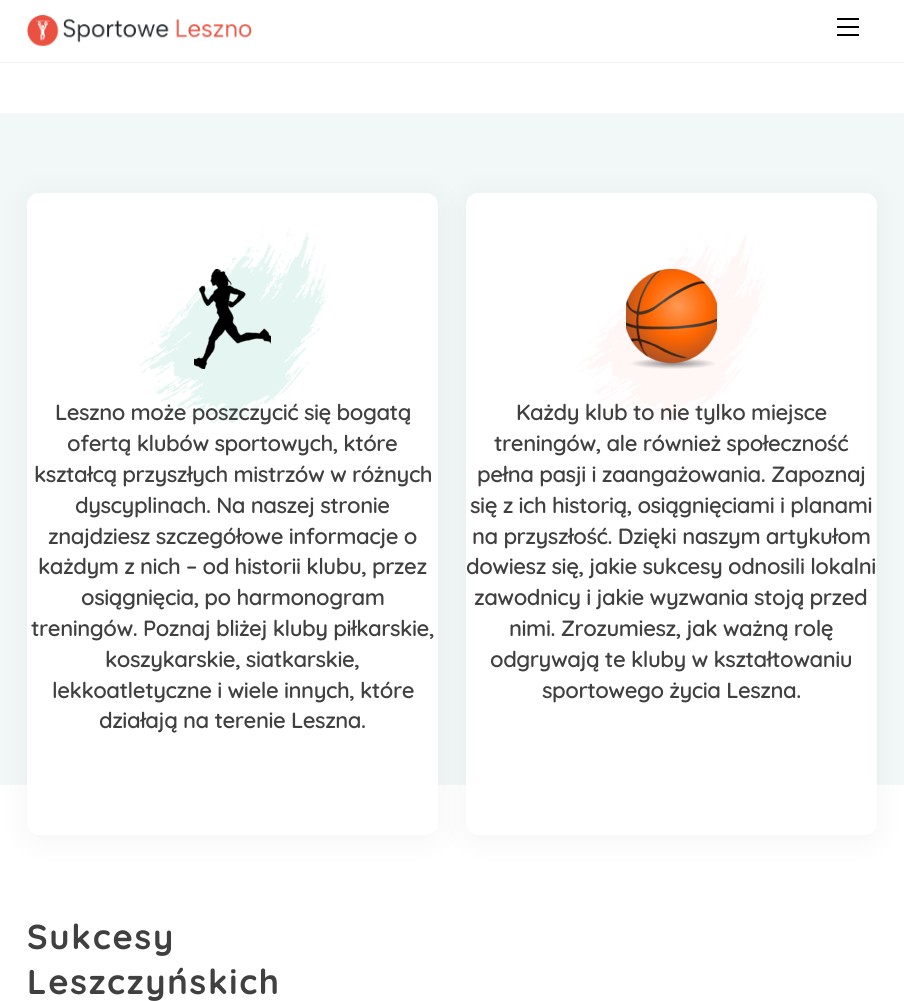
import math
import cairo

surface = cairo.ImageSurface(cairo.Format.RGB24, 904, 1001)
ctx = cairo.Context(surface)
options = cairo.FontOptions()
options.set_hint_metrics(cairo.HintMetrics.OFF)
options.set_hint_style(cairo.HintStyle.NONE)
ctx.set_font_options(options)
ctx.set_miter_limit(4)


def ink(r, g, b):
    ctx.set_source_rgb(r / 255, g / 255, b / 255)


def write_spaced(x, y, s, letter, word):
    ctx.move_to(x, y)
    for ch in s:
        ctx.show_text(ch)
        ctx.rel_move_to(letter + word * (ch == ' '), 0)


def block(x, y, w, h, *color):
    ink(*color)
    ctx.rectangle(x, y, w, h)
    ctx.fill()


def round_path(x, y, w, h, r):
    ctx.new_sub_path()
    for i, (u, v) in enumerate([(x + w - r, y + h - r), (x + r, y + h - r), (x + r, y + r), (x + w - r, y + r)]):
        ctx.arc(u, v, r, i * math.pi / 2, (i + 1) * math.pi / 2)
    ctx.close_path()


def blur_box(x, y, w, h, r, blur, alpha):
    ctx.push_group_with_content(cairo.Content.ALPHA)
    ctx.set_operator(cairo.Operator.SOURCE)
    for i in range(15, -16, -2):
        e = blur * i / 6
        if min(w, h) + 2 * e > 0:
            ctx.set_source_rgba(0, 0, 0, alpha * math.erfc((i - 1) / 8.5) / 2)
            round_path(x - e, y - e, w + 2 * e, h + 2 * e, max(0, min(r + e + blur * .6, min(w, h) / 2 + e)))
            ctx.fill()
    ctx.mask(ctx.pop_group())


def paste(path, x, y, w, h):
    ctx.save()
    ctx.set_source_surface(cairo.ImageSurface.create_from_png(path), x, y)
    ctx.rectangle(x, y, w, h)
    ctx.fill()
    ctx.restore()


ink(255, 255, 255)
ctx.paint()
block(0, 62, 904, 1, 242, 242, 242)
paste("pic1.png", 27, 15, 225, 31)
block(837, 34, 22, 2, 0, 0, 0)
block(837, 18, 22, 2, 0, 0, 0)
block(837, 26, 22, 2, 0, 0, 0)
block(0, 113, 904, 672, 242, 248, 248)
ink(0, 0, 0)
blur_box(27, 196, 411, 642, 12, 16, 0.05)
ink(255, 255, 255)
round_path(27, 193, 411, 642, 12)
ctx.fill()
paste("pic2.png", 139, 223, 189, 201)
paste("pic3.png", 194, 269, 77, 100)
ctx.select_font_face("Quicksand SemiBold")
ctx.set_font_size(22)
ink(64, 64, 64)
write_spaced(55, 420, "Leszno może poszczycić się bogatą", -0.45, 0)
write_spaced(67, 451, "ofertą klubów sportowych, które", -0.45, 0)
write_spaced(34, 482, "kształcą przyszłych mistrzów w różnych", -0.45, 0)
write_spaced(75, 513, "dyscyplinach. Na naszej stronie", -0.45, 0)
write_spaced(48, 544, "znajdziesz szczegółowe informacje o", -0.45, 0)
write_spaced(38, 574, "każdym z nich – od historii klubu, przez", -0.45, 0)
write_spaced(81, 605, "osiągnięcia, po harmonogram", -0.45, 0)
write_spaced(31, 636, "treningów. Poznaj bliżej kluby piłkarskie,", -0.45, 0)
write_spaced(105, 667, "koszykarskie, siatkarskie,", -0.45, 0)
write_spaced(52, 698, "lekkoatletyczne i wiele innych, które", -0.45, 0)
write_spaced(99, 728, "działają na terenie Leszna.", -0.45, 0)
ink(0, 0, 0)
blur_box(466, 196, 411, 642, 12, 16, 0.05)
ink(255, 255, 255)
round_path(466, 193, 411, 642, 12)
ctx.fill()
paste("pic4.png", 578, 232, 187, 191)
paste("pic5.png", 626, 269, 91, 100)
ink(64, 64, 64)
write_spaced(516, 420, "Każdy klub to nie tylko miejsce", -0.45, 0)
write_spaced(494, 451, "treningów, ale również społeczność", -0.45, 0)
write_spaced(477, 482, "pełna pasji i zaangażowania. Zapoznaj", -0.45, 0)
write_spaced(470, 513, "się z ich historią, osiągnięciami i planami", -0.45, 0)
write_spaced(472, 544, "na przyszłość. Dzięki naszym artykułom", -0.45, 0)
write_spaced(466, 574, "dowiesz się, jakie sukcesy odnosili lokalni", -0.45, 0)
write_spaced(474, 605, "zawodnicy i jakie wyzwania stoją przed", -0.45, 0)
write_spaced(509, 636, "nimi. Zrozumiesz, jak ważną rolę", -0.45, 0)
write_spaced(490, 667, "odgrywają te kluby w kształtowaniu", -0.45, 0)
write_spaced(542, 698, "sportowego życia Leszna.", -0.45, 0)
ctx.select_font_face("Quicksand", cairo.FontSlant.NORMAL, cairo.FontWeight.BOLD)
ctx.set_font_size(34.5)
write_spaced(27, 949, "Sukcesy", 1.75, 0)
write_spaced(27, 994, "Leszczyńskich", 1.75, 0)
surface.write_to_png("screenshot.png")
